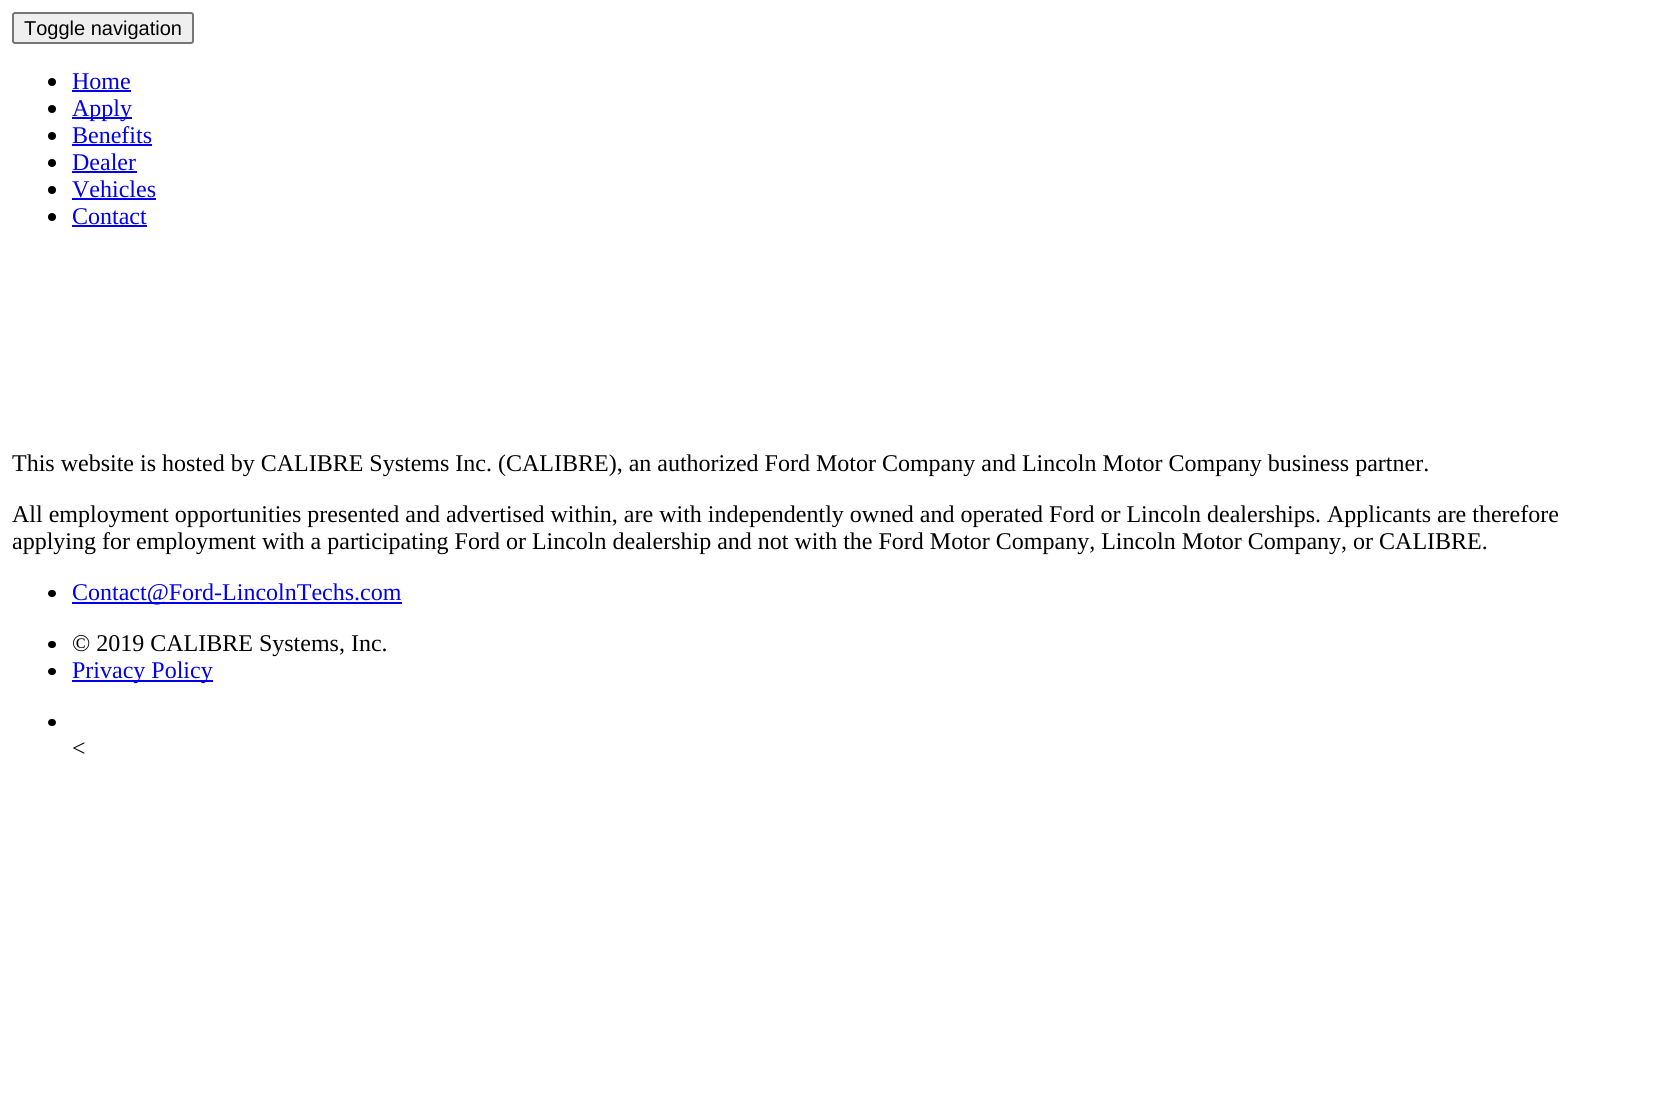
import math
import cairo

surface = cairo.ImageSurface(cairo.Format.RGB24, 1654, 1101)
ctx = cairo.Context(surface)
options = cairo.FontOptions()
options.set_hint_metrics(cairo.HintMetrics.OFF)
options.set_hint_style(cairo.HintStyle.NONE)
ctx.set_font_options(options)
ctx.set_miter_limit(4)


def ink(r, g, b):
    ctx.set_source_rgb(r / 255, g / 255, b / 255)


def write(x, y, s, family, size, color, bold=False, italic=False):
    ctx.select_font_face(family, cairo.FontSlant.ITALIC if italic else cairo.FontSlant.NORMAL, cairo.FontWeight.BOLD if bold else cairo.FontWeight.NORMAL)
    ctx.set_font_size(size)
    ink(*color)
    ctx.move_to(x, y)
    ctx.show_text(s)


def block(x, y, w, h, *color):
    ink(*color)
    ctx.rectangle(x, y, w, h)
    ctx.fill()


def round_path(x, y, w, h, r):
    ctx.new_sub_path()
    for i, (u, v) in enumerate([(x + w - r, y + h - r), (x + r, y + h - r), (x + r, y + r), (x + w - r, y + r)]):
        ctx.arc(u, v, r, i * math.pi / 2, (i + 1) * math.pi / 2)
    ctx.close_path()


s1 = dict(family="Liberation Sans", size=20, color=(0, 0, 0))
s2 = dict(family="Liberation Serif", size=24, color=(0, 0, 238))
s3 = dict(family="Liberation Serif", size=24, color=(0, 0, 0))

ink(255, 255, 255)
ctx.paint()
ink(239, 239, 239)
round_path(13, 13, 180, 30, 2)
ctx.fill_preserve()
ink(118, 118, 118)
ctx.stroke()
write(24, 35, "Toggle navigation", **s1)
ctx.new_path()
ctx.arc(52, 82, 4, 0, 2 * math.pi)
ctx.fill()
write(72, 89, "Home", **s2)
block(72, 90, 59, 2, 0, 0, 238)
ink(0, 0, 0)
ctx.new_path()
ctx.arc(52, 109, 4, 0, 2 * math.pi)
ctx.fill()
block(72, 117, 60, 2, 0, 0, 238)
write(72, 116, "Apply", **s2)
ink(0, 0, 0)
ctx.new_path()
ctx.arc(52, 136, 4, 0, 2 * math.pi)
ctx.fill()
write(72, 143, "Benefits", **s2)
block(72, 144, 80, 2, 0, 0, 238)
ink(0, 0, 0)
ctx.new_path()
ctx.arc(52, 163, 4, 0, 2 * math.pi)
ctx.fill()
write(72, 170, "Dealer", **s2)
block(72, 171, 65, 2, 0, 0, 238)
ink(0, 0, 0)
ctx.new_path()
ctx.arc(52, 190, 4, 0, 2 * math.pi)
ctx.fill()
write(72, 197, "Vehicles", **s2)
block(72, 198, 84, 2, 0, 0, 238)
ink(0, 0, 0)
ctx.new_path()
ctx.arc(52, 217, 4, 0, 2 * math.pi)
ctx.fill()
write(72, 224, "Contact", **s2)
block(72, 225, 75, 2, 0, 0, 238)
write(12, 471, "This website is hosted by CALIBRE Systems Inc. (CALIBRE), an authorized Ford Motor Company and Lincoln Motor Company business partner.", **s3)
write(12, 522, "All employment opportunities presented and advertised within, are with independently owned and operated Ford or Lincoln dealerships. Applicants are therefore", **s3)
write(12, 549, "applying for employment with a participating Ford or Lincoln dealership and not with the Ford Motor Company, Lincoln Motor Company, or CALIBRE.", **s3)
round_path(48, 590, 8, 7, 3.5)
ctx.fill()
block(72, 602, 330, 2, 0, 0, 238)
write(72, 600, "Contact@Ford-LincolnTechs.com", **s2)
ink(0, 0, 0)
round_path(48, 641, 8, 7, 3.5)
ctx.fill()
write(72, 651, "© 2019 CALIBRE Systems, Inc.", **s3)
round_path(48, 668, 8, 7, 3.5)
ctx.fill()
block(72, 680, 141, 2, 0, 0, 238)
write(72, 678, "Privacy Policy", **s2)
ink(0, 0, 0)
round_path(48, 719, 8, 7, 3.5)
ctx.fill()
write(72, 756, "<", **s3)
surface.write_to_png("screenshot.png")
